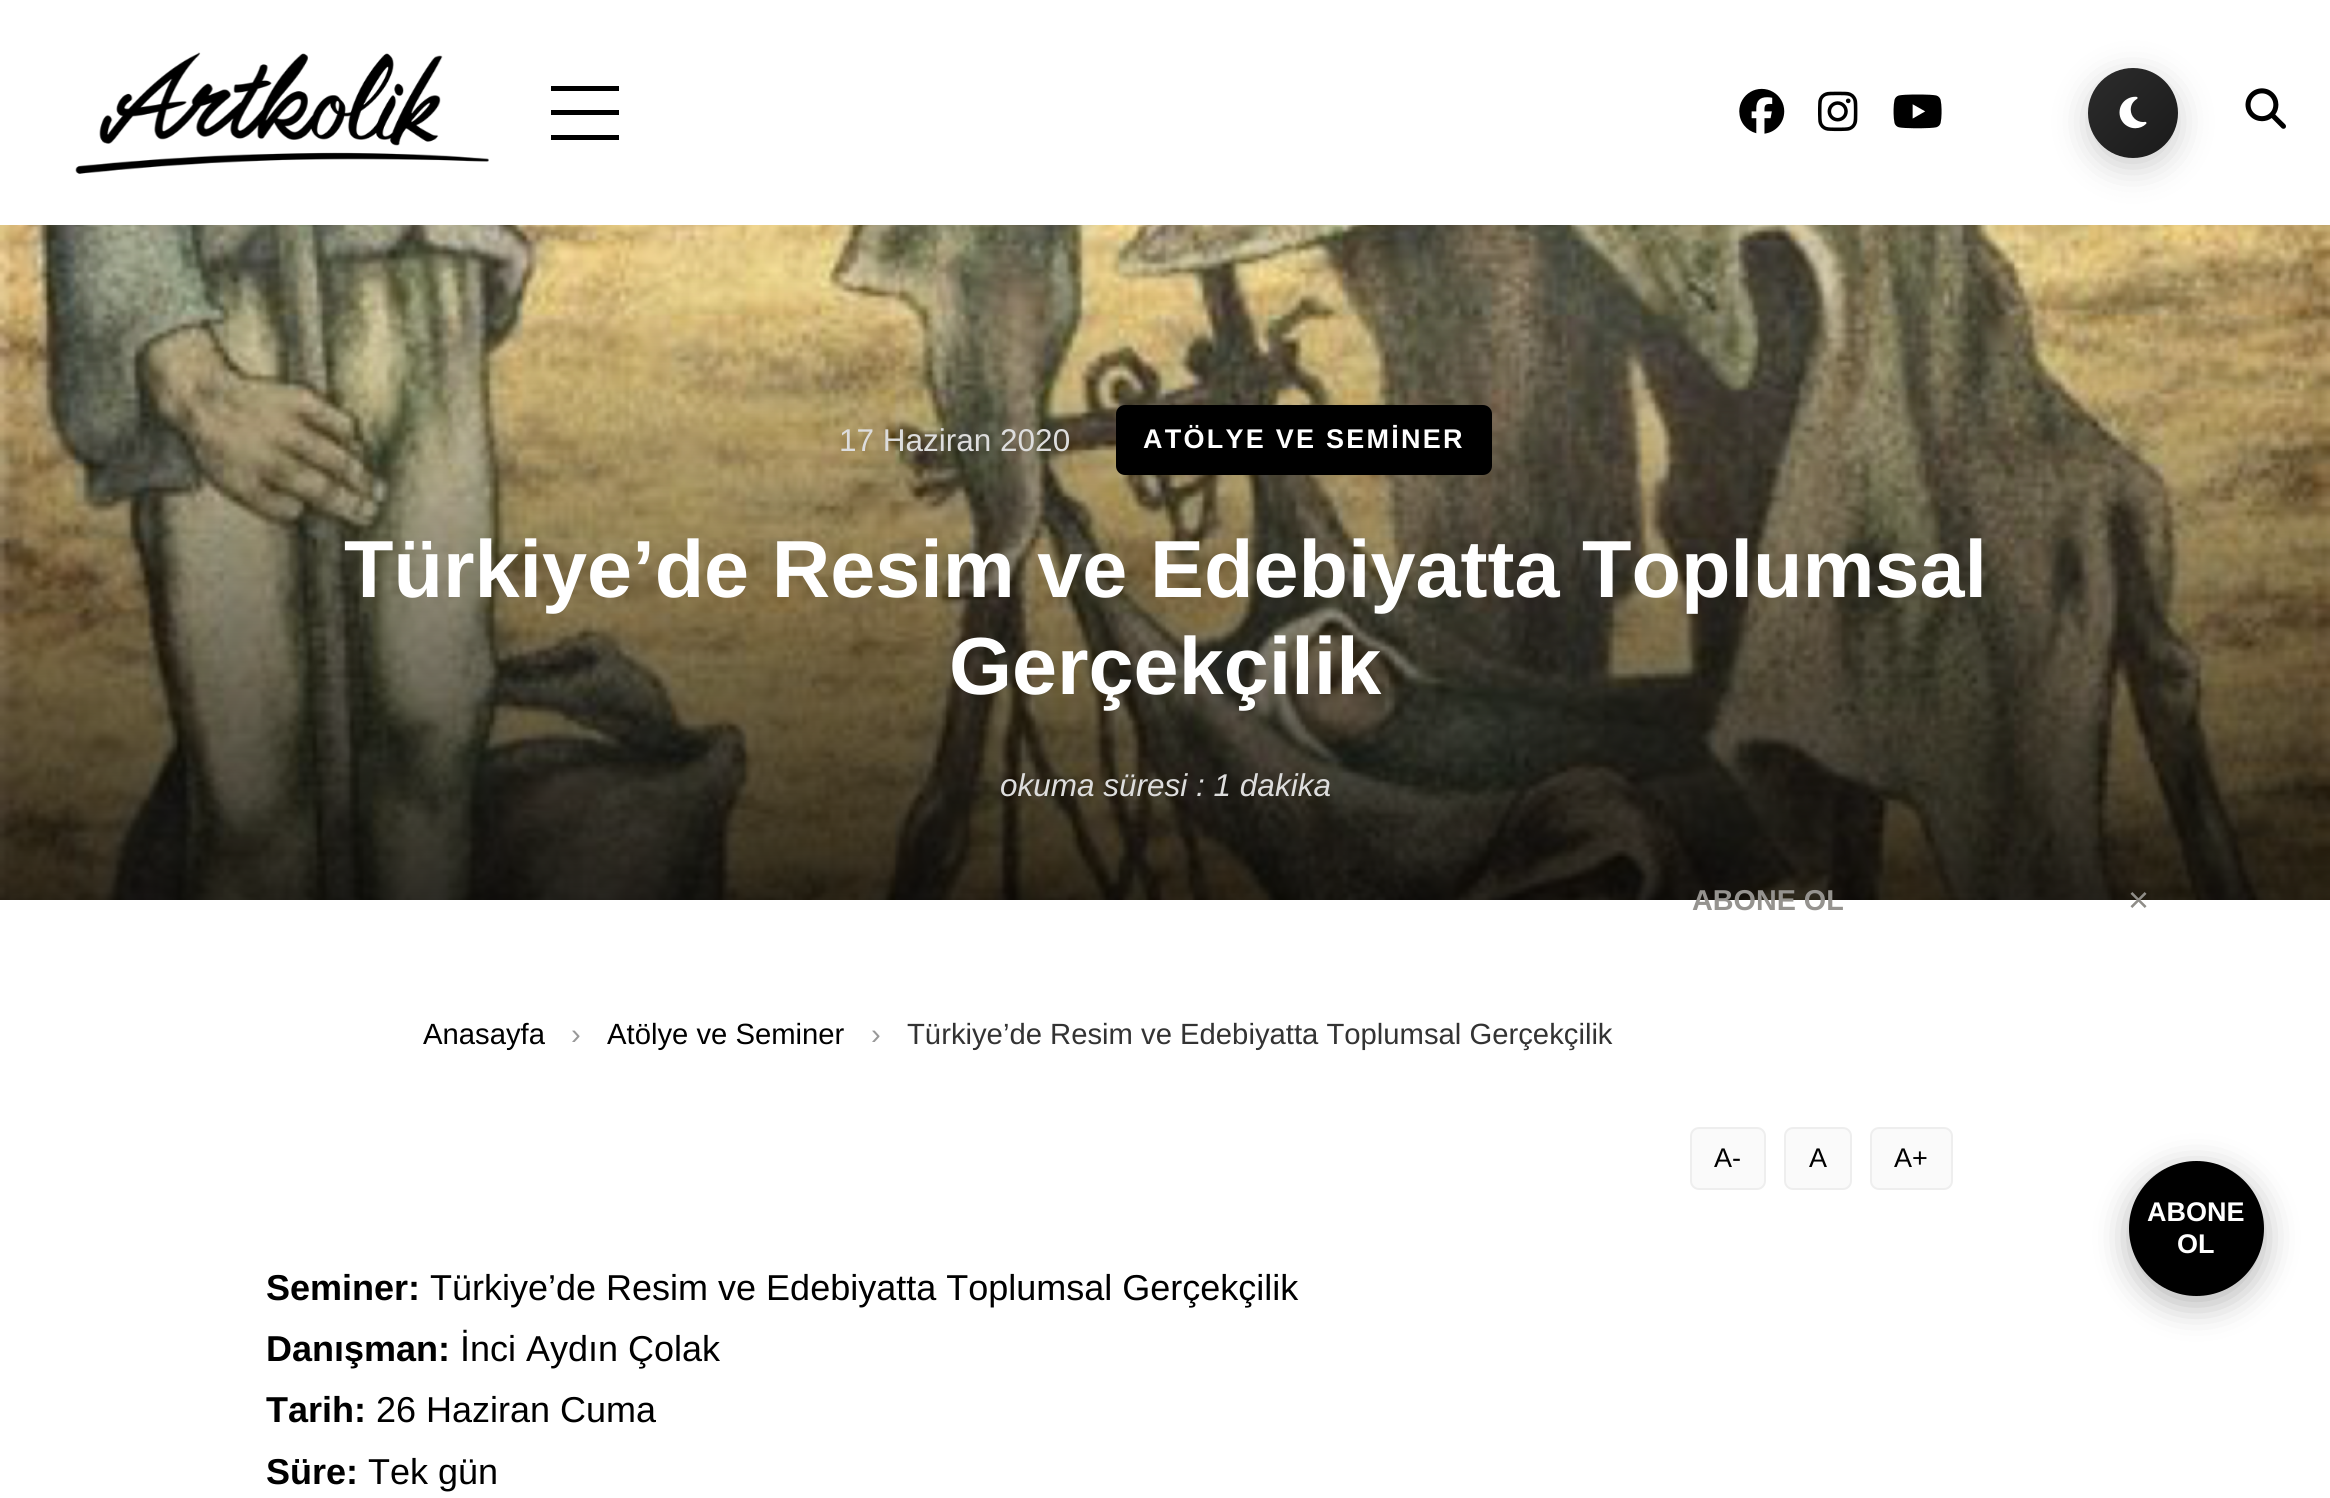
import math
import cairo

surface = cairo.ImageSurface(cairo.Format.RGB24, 2330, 1498)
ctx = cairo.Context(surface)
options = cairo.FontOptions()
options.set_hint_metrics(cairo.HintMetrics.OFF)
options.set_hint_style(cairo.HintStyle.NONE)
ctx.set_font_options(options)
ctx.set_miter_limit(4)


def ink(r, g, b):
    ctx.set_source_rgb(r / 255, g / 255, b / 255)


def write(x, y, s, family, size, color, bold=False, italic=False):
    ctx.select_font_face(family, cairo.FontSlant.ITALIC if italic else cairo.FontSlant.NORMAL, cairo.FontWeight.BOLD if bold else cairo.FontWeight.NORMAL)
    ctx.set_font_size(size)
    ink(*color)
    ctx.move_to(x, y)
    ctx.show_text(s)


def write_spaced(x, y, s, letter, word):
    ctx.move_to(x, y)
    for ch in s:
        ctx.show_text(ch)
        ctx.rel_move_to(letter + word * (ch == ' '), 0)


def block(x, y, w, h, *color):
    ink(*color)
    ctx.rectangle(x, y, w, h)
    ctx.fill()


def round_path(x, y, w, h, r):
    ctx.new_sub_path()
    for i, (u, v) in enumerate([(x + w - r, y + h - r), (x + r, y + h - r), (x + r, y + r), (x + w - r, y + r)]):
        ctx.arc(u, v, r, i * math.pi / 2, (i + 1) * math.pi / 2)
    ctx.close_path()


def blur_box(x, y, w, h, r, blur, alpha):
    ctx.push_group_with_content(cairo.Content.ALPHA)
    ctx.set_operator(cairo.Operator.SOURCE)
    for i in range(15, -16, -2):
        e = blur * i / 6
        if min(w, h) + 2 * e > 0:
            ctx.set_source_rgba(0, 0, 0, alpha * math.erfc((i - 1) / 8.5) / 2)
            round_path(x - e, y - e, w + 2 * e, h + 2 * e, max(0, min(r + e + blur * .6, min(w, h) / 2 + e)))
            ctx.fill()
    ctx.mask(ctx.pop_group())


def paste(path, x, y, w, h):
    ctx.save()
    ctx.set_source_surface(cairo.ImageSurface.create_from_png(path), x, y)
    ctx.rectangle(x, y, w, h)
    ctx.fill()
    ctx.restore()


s1 = dict(family="Liberation Sans", size=31.5, color=(221, 221, 221))
s2 = dict(family="Liberation Sans", size=81, color=(255, 255, 255), bold=True)
s3 = dict(family="Liberation Sans", size=31.5, color=(221, 221, 221), italic=True)
s4 = dict(family="Liberation Sans", size=29.25, color=(0, 0, 0))
s5 = dict(family="Liberation Sans", size=29.25, color=(153, 153, 153))
s6 = dict(family="Liberation Sans", size=29.25, color=(51, 51, 51))
s7 = dict(family="Liberation Sans", size=27, color=(0, 0, 0))
s8 = dict(family="Liberation Sans", size=36, color=(0, 0, 0), bold=True)
s9 = dict(family="Liberation Sans", size=36, color=(0, 0, 0))
s10 = dict(family="Liberation Sans", size=28.75, color=(149, 147, 143), bold=True)
s11 = dict(family="Liberation Sans", size=36, color=(143, 141, 136))
s12 = dict(family="Liberation Sans", size=27, color=(255, 255, 255), bold=True)

ink(255, 255, 255)
ctx.paint()
paste("pic1.png", 75, 52, 414, 122)
block(551, 86, 68, 5, 0, 0, 0)
block(551, 110, 68, 5, 0, 0, 0)
block(551, 135, 68, 5, 0, 0, 0)
paste("pic2.png", 1739, 88, 46, 46)
paste("pic3.png", 1818, 91, 40, 41)
paste("pic4.png", 1893, 94, 49, 35)
ink(0, 0, 0)
blur_box(2088, 77, 90, 90, 45, 17, 0.2)
gradient = cairo.LinearGradient(2088, 68, 2178, 158)
gradient.add_color_stop_rgba(0, 0.173, 0.173, 0.173, 1)
gradient.add_color_stop_rgba(1, 0.102, 0.102, 0.102, 1)
ctx.set_source(gradient)
ctx.arc(2133, 113, 45, 0, 2 * math.pi)
ctx.fill()
paste("pic5.png", 2119, 96, 28, 33)
paste("pic6.png", 2245, 88, 41, 41)
paste("pic7.png", 0, 225, 2330, 675)
write(839, 451, "17 Haziran 2020", **s1)
ink(0, 0, 0)
round_path(1116, 405, 376, 70, 9)
ctx.fill()
ctx.select_font_face("Liberation Sans", cairo.FontSlant.NORMAL, cairo.FontWeight.BOLD)
ctx.set_font_size(27)
ink(255, 255, 255)
write_spaced(1143, 448, "ATÖLYE VE SEMİNER", 2.25, 0)
write(344, 597, "Türkiye’de Resim ve Edebiyatta Toplumsal", **s2)
write(949, 694, "Gerçekçilik", **s2)
write(1000, 796, "okuma süresi : 1 dakika", **s3)
write(423, 1044, "Anasayfa", **s4)
write(571, 1044, "›", **s5)
write(607, 1044, "Atölye ve Seminer", **s4)
write(871, 1044, "›", **s5)
write(907, 1044, "Türkiye’de Resim ve Edebiyatta Toplumsal Gerçekçilik", **s6)
ink(250, 250, 250)
round_path(1691, 1128, 74, 61, 8)
ctx.fill_preserve()
ink(238, 238, 238)
ctx.stroke()
write(1714, 1167, "A-", **s7)
ink(250, 250, 250)
round_path(1785, 1128, 66, 61, 8)
ctx.fill_preserve()
ink(238, 238, 238)
ctx.stroke()
write(1809, 1167, "A", **s7)
ink(250, 250, 250)
round_path(1871, 1128, 81, 61, 8)
ctx.fill_preserve()
ink(238, 238, 238)
ctx.stroke()
write(1894, 1167, "A+", **s7)
write(266, 1300, "Seminer:", **s8)
write(430, 1300, "Türkiye’de Resim ve Edebiyatta Toplumsal Gerçekçilik", **s9)
write(266, 1361, "Danışman:", **s8)
write(460, 1361, "İnci Aydın Çolak", **s9)
write(266, 1422, "Tarih:", **s8)
write(376, 1422, "26 Haziran Cuma", **s9)
write(266, 1484, "Süre:", **s8)
write(368, 1484, "Tek gün", **s9)
write(1692, 910, "ABONE OL", **s10)
write(2128, 912, "×", **s11)
ink(0, 0, 0)
blur_box(2129, 1170, 135, 135, 67.5, 17, 0.3)
ink(0, 0, 0)
ctx.arc(2196.5, 1228.5, 67.5, 0, 2 * math.pi)
ctx.fill()
write(2147, 1221, "ABONE", **s12)
write(2177, 1253, "OL", **s12)
surface.write_to_png("screenshot.png")
